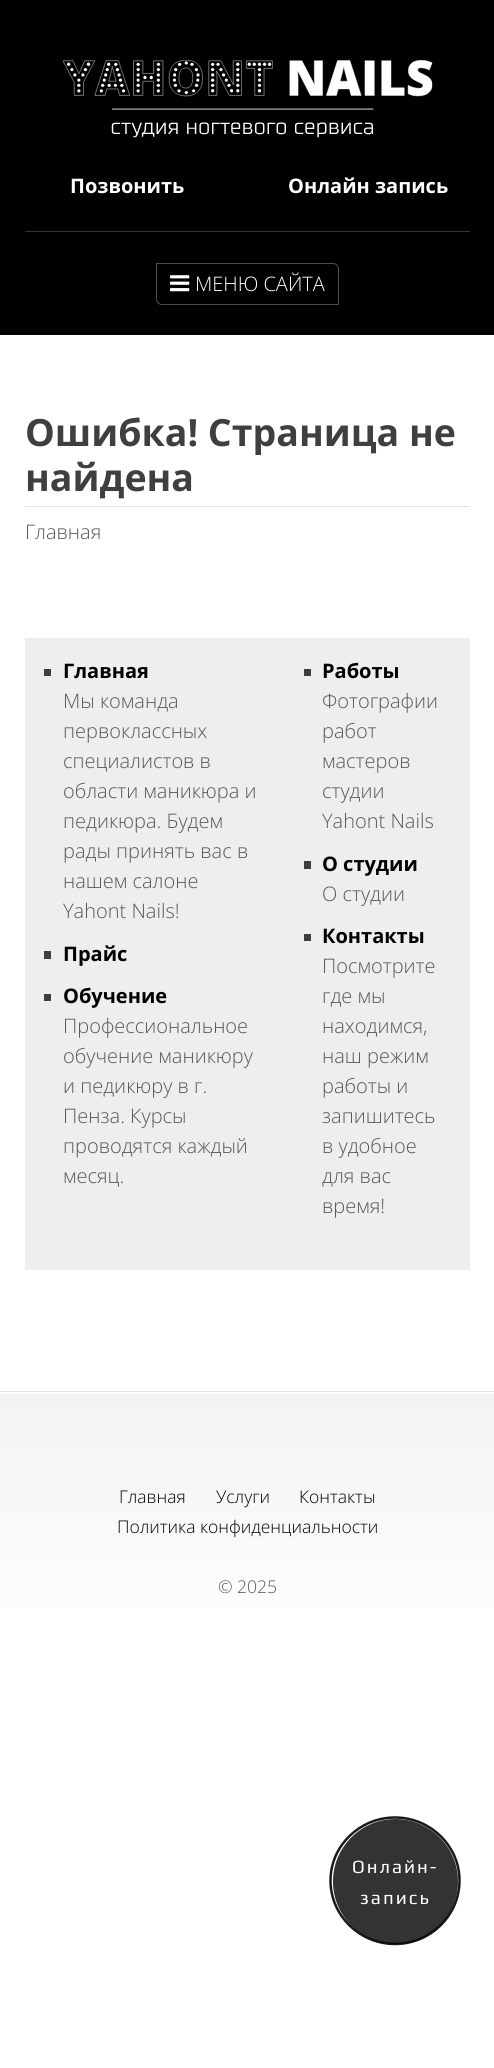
import math
import cairo

surface = cairo.ImageSurface(cairo.Format.RGB24, 494, 2068)
ctx = cairo.Context(surface)
options = cairo.FontOptions()
options.set_hint_metrics(cairo.HintMetrics.OFF)
options.set_hint_style(cairo.HintStyle.NONE)
ctx.set_font_options(options)
ctx.set_miter_limit(4)


def ink(r, g, b):
    ctx.set_source_rgb(r / 255, g / 255, b / 255)


def write(x, y, s, family, size, color, bold=False, italic=False):
    ctx.select_font_face(family, cairo.FontSlant.ITALIC if italic else cairo.FontSlant.NORMAL, cairo.FontWeight.BOLD if bold else cairo.FontWeight.NORMAL)
    ctx.set_font_size(size)
    ink(*color)
    ctx.move_to(x, y)
    ctx.show_text(s)


def write_spaced(x, y, s, letter, word):
    ctx.move_to(x, y)
    for ch in s:
        ctx.show_text(ch)
        ctx.rel_move_to(letter + word * (ch == ' '), 0)


def block(x, y, w, h, *color):
    ink(*color)
    ctx.rectangle(x, y, w, h)
    ctx.fill()


def paste(path, x, y, w, h):
    ctx.save()
    ctx.set_source_surface(cairo.ImageSurface.create_from_png(path), x, y)
    ctx.rectangle(x, y, w, h)
    ctx.fill()
    ctx.restore()


s1 = dict(family="Open Sans", size=20, color=(255, 255, 255), bold=True)
s2 = dict(family="Open Sans Light", size=20, color=(255, 255, 255))
s3 = dict(family="Open Sans", size=37.5, color=(63, 63, 63), bold=True)
s4 = dict(family="Open Sans Light", size=20, color=(88, 88, 88))
s5 = dict(family="Open Sans", size=20, color=(0, 0, 0), bold=True)
s6 = dict(family="Open Sans Light", size=17.5, color=(0, 0, 0))
s7 = dict(family="Open Sans Light", size=17.5, color=(88, 88, 88))

ink(255, 255, 255)
ctx.paint()
block(0, 0, 494, 335, 0, 0, 0)
paste("pic1.png", 63, 60, 370, 78)
write(70, 193, "Позвонить", **s1)
write(288, 193, "Онлайн запись", **s1)
block(25, 231, 445, 1, 51, 51, 51)
ctx.new_path()
ctx.move_to(156.5, 263.5)
ctx.line_to(333, 263.5)
ctx.curve_to(336, 263.5, 338.5, 266, 338.5, 269)
ctx.line_to(338.5, 304.5)
ctx.line_to(162, 304.5)
ctx.curve_to(159, 304.5, 156.5, 302, 156.5, 299)
ctx.close_path()
ink(77, 77, 77)
ctx.set_line_width(1)
ctx.stroke()
paste("pic2.png", 170, 275, 20, 17)
write(195, 291, "МЕНЮ САЙТА", **s2)
block(25, 506, 445, 1, 225, 225, 225)
write(25, 446, "Ошибка! Страница не", **s3)
write(25, 491, "найдена", **s3)
write(25, 539, "Главная", **s4)
block(25, 638, 445, 632, 238, 238, 238)
block(44, 669, 7, 7, 63, 63, 63)
write(63, 678, "Главная", **s5)
write(63, 708, "Мы команда", **s4)
write(63, 738, "первоклассных", **s4)
write(63, 768, "специалистов в", **s4)
write(63, 798, "области маникюра и", **s4)
write(63, 828, "педикюра. Будем", **s4)
write(63, 858, "рады принять вас в", **s4)
write(63, 888, "нашем салоне", **s4)
write(63, 918, "Yahont Nails!", **s4)
block(44, 951, 7, 8, 63, 63, 63)
write(63, 961, "Прайс", **s5)
block(44, 994, 7, 7, 63, 63, 63)
write(63, 1003, "Обучение", **s5)
write(63, 1033, "Профессиональное", **s4)
write(63, 1063, "обучение маникюру", **s4)
write(63, 1093, "и педикюру в г.", **s4)
write(63, 1123, "Пенза. Курсы", **s4)
write(63, 1153, "проводятся каждый", **s4)
write(63, 1183, "месяц.", **s4)
block(304, 669, 7, 7, 63, 63, 63)
write(322, 678, "Работы", **s5)
write(322, 708, "Фотографии", **s4)
write(322, 738, "работ", **s4)
write(322, 768, "мастеров", **s4)
write(322, 798, "студии", **s4)
write(322, 828, "Yahont Nails", **s4)
block(304, 861, 7, 8, 63, 63, 63)
write(322, 871, "О студии", **s5)
write(322, 901, "О студии", **s4)
block(304, 934, 7, 7, 63, 63, 63)
write(322, 943, "Контакты", **s5)
write(322, 973, "Посмотрите", **s4)
write(322, 1003, "где мы", **s4)
write(322, 1033, "находимся,", **s4)
write(322, 1063, "наш режим", **s4)
write(322, 1093, "работы и", **s4)
write(322, 1123, "запишитесь", **s4)
write(322, 1153, "в удобное", **s4)
write(322, 1183, "для вас", **s4)
write(322, 1213, "время!", **s4)
gradient = cairo.LinearGradient(248, 1393, 248, 1663)
gradient.add_color_stop_rgba(0, 0.953, 0.953, 0.953, 1)
gradient.add_color_stop_rgba(1, 1, 1, 1, 1)
ctx.set_source(gradient)
ctx.rectangle(0, 1394, 494, 213)
ctx.fill()
block(0, 1391, 494, 1, 225, 225, 225)
write(119, 1503, "Главная", **s6)
write(216, 1503, "Услуги", **s6)
write(299, 1503, "Контакты", **s6)
write(117, 1533, "Политика конфиденциальности", **s6)
write(218, 1593, "© 2025", **s7)
ink(51, 51, 51)
ctx.new_path()
ctx.arc(395.5, 1881.5, 62.5, 0, 2 * math.pi)
ctx.fill()
ctx.new_path()
ctx.move_to(395, 1817.5)
ctx.curve_to(430.5, 1817.5, 459.5, 1846, 459.5, 1880.5)
ctx.curve_to(459.5, 1915.5, 430.5, 1944, 395, 1944)
ctx.curve_to(359.5, 1944, 330.5, 1915.5, 330.5, 1880.5)
ctx.curve_to(330.5, 1846, 359.5, 1817.5, 395, 1817.5)
ctx.close_path()
ctx.set_source_rgba(0, 0, 0, 0.9)
ctx.set_line_width(2.5)
ctx.stroke()
ctx.select_font_face("Play")
ctx.set_font_size(18.75)
ink(255, 255, 255)
write_spaced(352, 1873, "Онлайн-", 2, 0)
write_spaced(360, 1904, "запись", 2, 0)
surface.write_to_png("screenshot.png")
